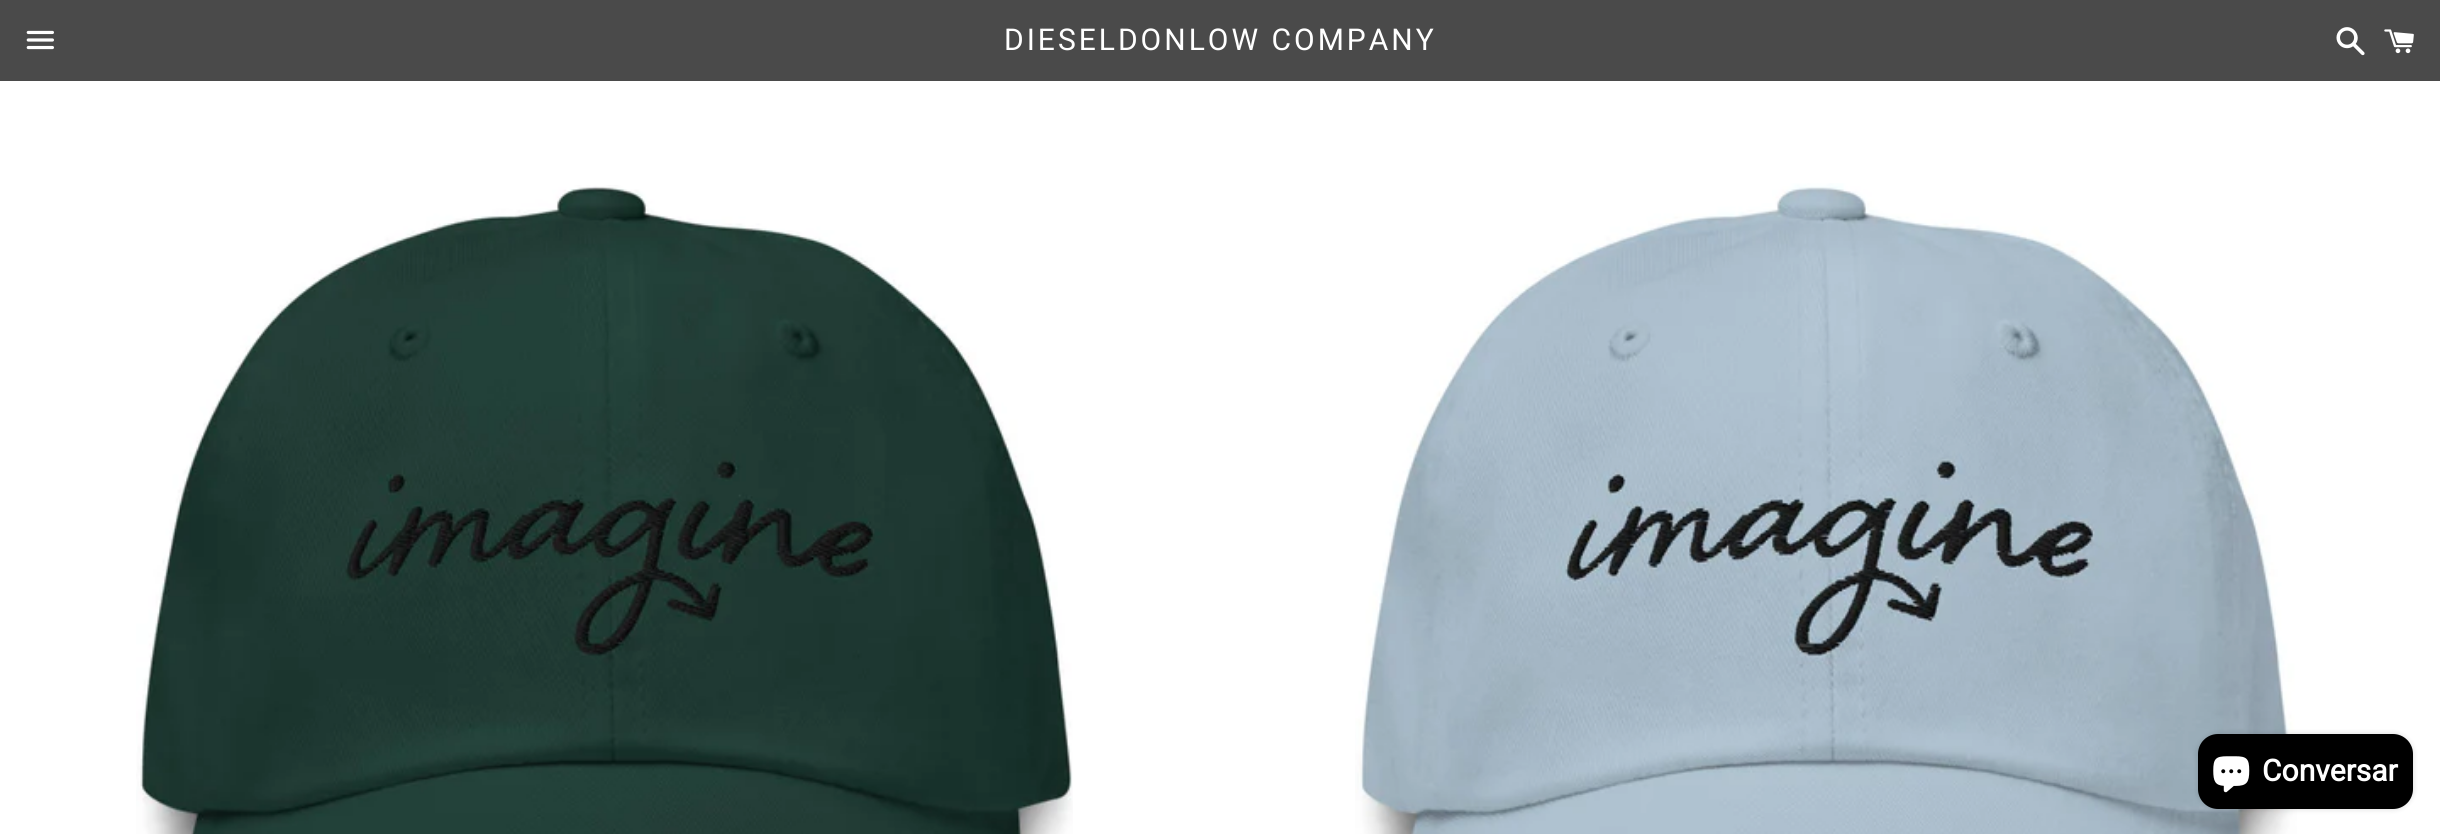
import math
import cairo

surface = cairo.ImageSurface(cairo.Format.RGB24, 2440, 834)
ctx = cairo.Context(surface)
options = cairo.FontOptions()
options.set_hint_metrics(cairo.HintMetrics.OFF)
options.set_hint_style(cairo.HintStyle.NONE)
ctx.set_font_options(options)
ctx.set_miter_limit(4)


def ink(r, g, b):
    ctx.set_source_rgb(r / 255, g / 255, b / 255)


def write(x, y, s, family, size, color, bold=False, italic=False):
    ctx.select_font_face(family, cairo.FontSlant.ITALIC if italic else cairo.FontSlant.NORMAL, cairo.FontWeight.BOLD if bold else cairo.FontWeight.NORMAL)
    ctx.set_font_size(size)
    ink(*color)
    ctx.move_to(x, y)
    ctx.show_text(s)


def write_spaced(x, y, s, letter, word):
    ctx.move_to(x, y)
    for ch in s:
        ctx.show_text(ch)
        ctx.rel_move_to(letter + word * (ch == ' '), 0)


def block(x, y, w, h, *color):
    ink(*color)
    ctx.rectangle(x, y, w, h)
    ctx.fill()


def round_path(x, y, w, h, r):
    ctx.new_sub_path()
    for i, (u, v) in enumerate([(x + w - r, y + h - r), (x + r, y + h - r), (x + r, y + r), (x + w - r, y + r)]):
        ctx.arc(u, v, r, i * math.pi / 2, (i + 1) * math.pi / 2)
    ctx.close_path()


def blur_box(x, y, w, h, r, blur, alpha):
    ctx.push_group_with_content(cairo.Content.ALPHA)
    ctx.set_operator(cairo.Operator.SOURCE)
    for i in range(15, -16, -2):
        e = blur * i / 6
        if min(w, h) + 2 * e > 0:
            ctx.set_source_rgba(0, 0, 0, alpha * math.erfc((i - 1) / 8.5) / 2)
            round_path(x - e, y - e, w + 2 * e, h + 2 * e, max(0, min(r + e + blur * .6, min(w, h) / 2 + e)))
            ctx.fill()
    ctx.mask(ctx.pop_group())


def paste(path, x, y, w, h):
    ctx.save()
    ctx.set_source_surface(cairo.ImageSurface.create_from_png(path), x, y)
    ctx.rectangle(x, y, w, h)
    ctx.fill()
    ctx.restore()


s1 = dict(family="Roboto", size=30, color=(255, 255, 255), bold=True)

ink(255, 255, 255)
ctx.paint()
block(0, 0, 2440, 81, 74, 74, 74)
paste("pic1.png", 26, 30, 28, 20)
ctx.select_font_face("Roboto")
ctx.set_font_size(30)
ink(255, 255, 255)
write_spaced(1004, 50, "DIESELDONLOW COMPANY", 3, 0)
paste("pic2.png", 2336, 27, 29, 29)
paste("pic3.png", 2384, 29, 30, 25)
paste("pic4.png", 136, 185, 937, 649)
paste("pic5.png", 1355, 183, 942, 651)
ink(0, 0, 0)
blur_box(2198, 734, 215, 75, 20, 3, 0.15)
ink(0, 0, 0)
round_path(2198, 734, 215, 75, 20)
ctx.fill()
paste("pic6.png", 2213, 756, 37, 37)
write(2262, 781, "Conversar", **s1)
surface.write_to_png("screenshot.png")
